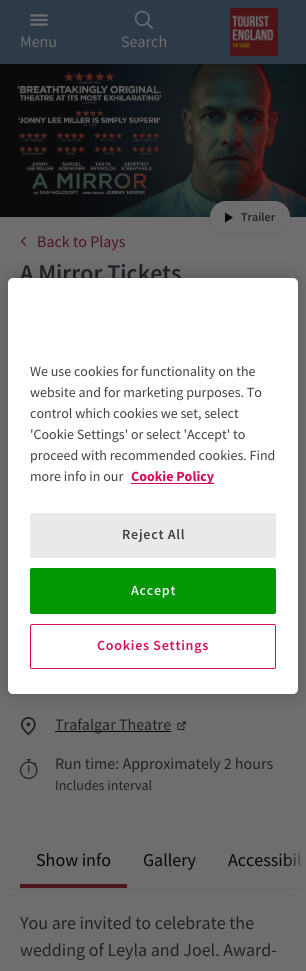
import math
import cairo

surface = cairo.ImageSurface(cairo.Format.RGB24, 306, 971)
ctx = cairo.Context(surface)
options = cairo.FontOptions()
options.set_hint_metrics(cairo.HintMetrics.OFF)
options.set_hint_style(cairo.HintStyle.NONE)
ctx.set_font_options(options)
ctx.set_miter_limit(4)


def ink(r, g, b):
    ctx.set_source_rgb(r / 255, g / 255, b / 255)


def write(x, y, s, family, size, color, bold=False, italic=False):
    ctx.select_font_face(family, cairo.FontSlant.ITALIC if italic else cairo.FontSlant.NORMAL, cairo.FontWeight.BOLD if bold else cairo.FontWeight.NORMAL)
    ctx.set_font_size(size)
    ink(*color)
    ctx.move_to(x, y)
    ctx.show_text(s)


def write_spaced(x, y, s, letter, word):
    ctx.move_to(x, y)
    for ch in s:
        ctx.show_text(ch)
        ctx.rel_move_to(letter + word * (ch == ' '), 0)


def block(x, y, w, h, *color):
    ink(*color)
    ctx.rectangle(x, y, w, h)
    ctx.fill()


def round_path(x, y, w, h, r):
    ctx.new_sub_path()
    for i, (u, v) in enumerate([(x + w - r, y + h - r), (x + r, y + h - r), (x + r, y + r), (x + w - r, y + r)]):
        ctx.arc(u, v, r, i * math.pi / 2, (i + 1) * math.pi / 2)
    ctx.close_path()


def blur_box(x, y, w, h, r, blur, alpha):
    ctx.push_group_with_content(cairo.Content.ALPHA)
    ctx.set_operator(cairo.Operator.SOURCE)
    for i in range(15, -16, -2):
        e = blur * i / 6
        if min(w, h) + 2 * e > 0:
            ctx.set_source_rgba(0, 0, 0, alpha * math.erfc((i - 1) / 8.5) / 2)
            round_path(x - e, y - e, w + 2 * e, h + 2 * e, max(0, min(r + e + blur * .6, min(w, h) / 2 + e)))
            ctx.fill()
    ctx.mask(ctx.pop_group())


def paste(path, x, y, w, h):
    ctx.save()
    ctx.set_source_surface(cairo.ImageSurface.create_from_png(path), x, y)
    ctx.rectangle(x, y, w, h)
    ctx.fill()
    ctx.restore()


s1 = dict(family="Source Sans Pro", size=16, color=(110, 110, 113))
s2 = dict(family="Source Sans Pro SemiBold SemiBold", size=12, color=(34, 34, 38))
s3 = dict(family="Source Sans Pro", size=16, color=(77, 22, 30))
s4 = dict(family="Source Sans Pro SemiBold SemiBold", size=24, color=(34, 34, 38))
s5 = dict(family="Source Sans Pro", size=16, color=(34, 34, 38))
s6 = dict(family="Source Sans Pro", size=14, color=(34, 34, 38))
s7 = dict(family="Source Sans Pro", size=18, color=(8, 8, 11))
s8 = dict(family="Source Sans Pro", size=18, color=(34, 34, 38))
s9 = dict(family="Source Sans Pro", size=14, color=(64, 64, 69))
s10 = dict(family="Source Sans Pro", size=14, color=(214, 12, 91), bold=True)

ink(110, 110, 113)
ctx.paint()
block(0, 0, 306, 64, 46, 58, 71)
paste("pic1.png", 30, 14, 18, 12)
write(20, 47, "Menu", **s1)
paste("pic2.png", 134, 10, 20, 20)
write(121, 47, "Search", **s1)
paste("pic3.png", 230, 8, 48, 48)
paste("pic4.png", 0, 64, 306, 153)
ink(8, 8, 11)
blur_box(210, 202, 80, 32, 16, 1.5, 0.1)
ink(110, 110, 113)
round_path(210, 201, 80, 32, 16)
ctx.fill()
ink(8, 8, 11)
ctx.new_path()
ctx.move_to(225, 212.5)
ctx.line_to(225, 222.5)
ctx.line_to(233, 217.5)
ctx.close_path()
ctx.fill()
write(241, 221, "Trailer", **s2)
paste("pic5.png", 20, 236, 7, 10)
write(37, 247, "Back to Plays", **s3)
write(20, 281, "A Mirror Tickets", **s4)
paste("pic6.png", 20, 717, 16, 19)
block(55, 731, 116, 1, 8, 8, 11)
write(55, 730, "Trafalgar Theatre", **s5)
paste("pic7.png", 177, 721, 9, 9)
paste("pic8.png", 20, 759, 18, 20)
write(55, 769, "Run time: Approximately 2 hours", **s5)
write(55, 790, "Includes interval", **s6)
block(0, 888, 306, 1, 102, 102, 107)
write(36, 866, "Show info", **s7)
block(20, 884, 107, 4, 77, 22, 30)
write(143, 866, "Gallery", **s7)
write(228, 866, "Accessibil", **s7)
gradient = cairo.LinearGradient(0, 863, 20, 863)
gradient.add_color_stop_rgba(0, 0.431, 0.431, 0.443, 1)
gradient.add_color_stop_rgba(1, 0.431, 0.431, 0.443, 0)
ctx.set_source(gradient)
ctx.rectangle(0, 888, 14, 1)
ctx.fill()
gradient = cairo.LinearGradient(286, 863, 306, 863)
gradient.add_color_stop_rgba(0, 0.431, 0.431, 0.443, 0)
gradient.add_color_stop_rgba(1, 0.431, 0.431, 0.443, 1)
ctx.set_source(gradient)
ctx.rectangle(287, 853, 19, 36)
ctx.fill()
write(20, 929, "You are invited to celebrate the", **s8)
write(20, 956, "wedding of Leyla and Joel. Award-", **s8)
ink(0, 0, 0)
blur_box(8, 278, 290, 416, 5, 9, 0.2)
ink(255, 255, 255)
round_path(8, 278, 290, 416, 5)
ctx.fill()
write(30, 376, "We use cookies for functionality on the", **s9)
write(30, 397, "website and for marketing purposes. To", **s9)
write(30, 418, "control which cookies we set, select", **s9)
write(30, 439, "'Cookie Settings' or select 'Accept' to", **s9)
write(30, 460, "proceed with recommended cookies. Find", **s9)
write(30, 481, "more info in our", **s9)
block(131, 483, 83, 1, 214, 12, 91)
write(131, 481, "Cookie Policy", **s10)
ink(233, 233, 233)
round_path(30.5, 513.5, 245, 44, 1.5)
ctx.fill_preserve()
ctx.set_line_width(1)
ctx.stroke()
ctx.select_font_face("Source Sans Pro SemiBold SemiBold")
ink(64, 64, 69)
write_spaced(122, 539, "Reject All", 0.75, 0)
ink(0, 151, 1)
round_path(30.5, 568.5, 245, 45, 1.5)
ctx.fill_preserve()
ctx.stroke()
ink(234, 234, 240)
write_spaced(131, 595, "Accept", 0.75, 0)
round_path(30.5, 624.5, 245, 44, 1.5)
ink(214, 12, 91)
ctx.stroke()
write_spaced(97, 650, "Cookies Settings", 0.75, 0)
surface.write_to_png("screenshot.png")
